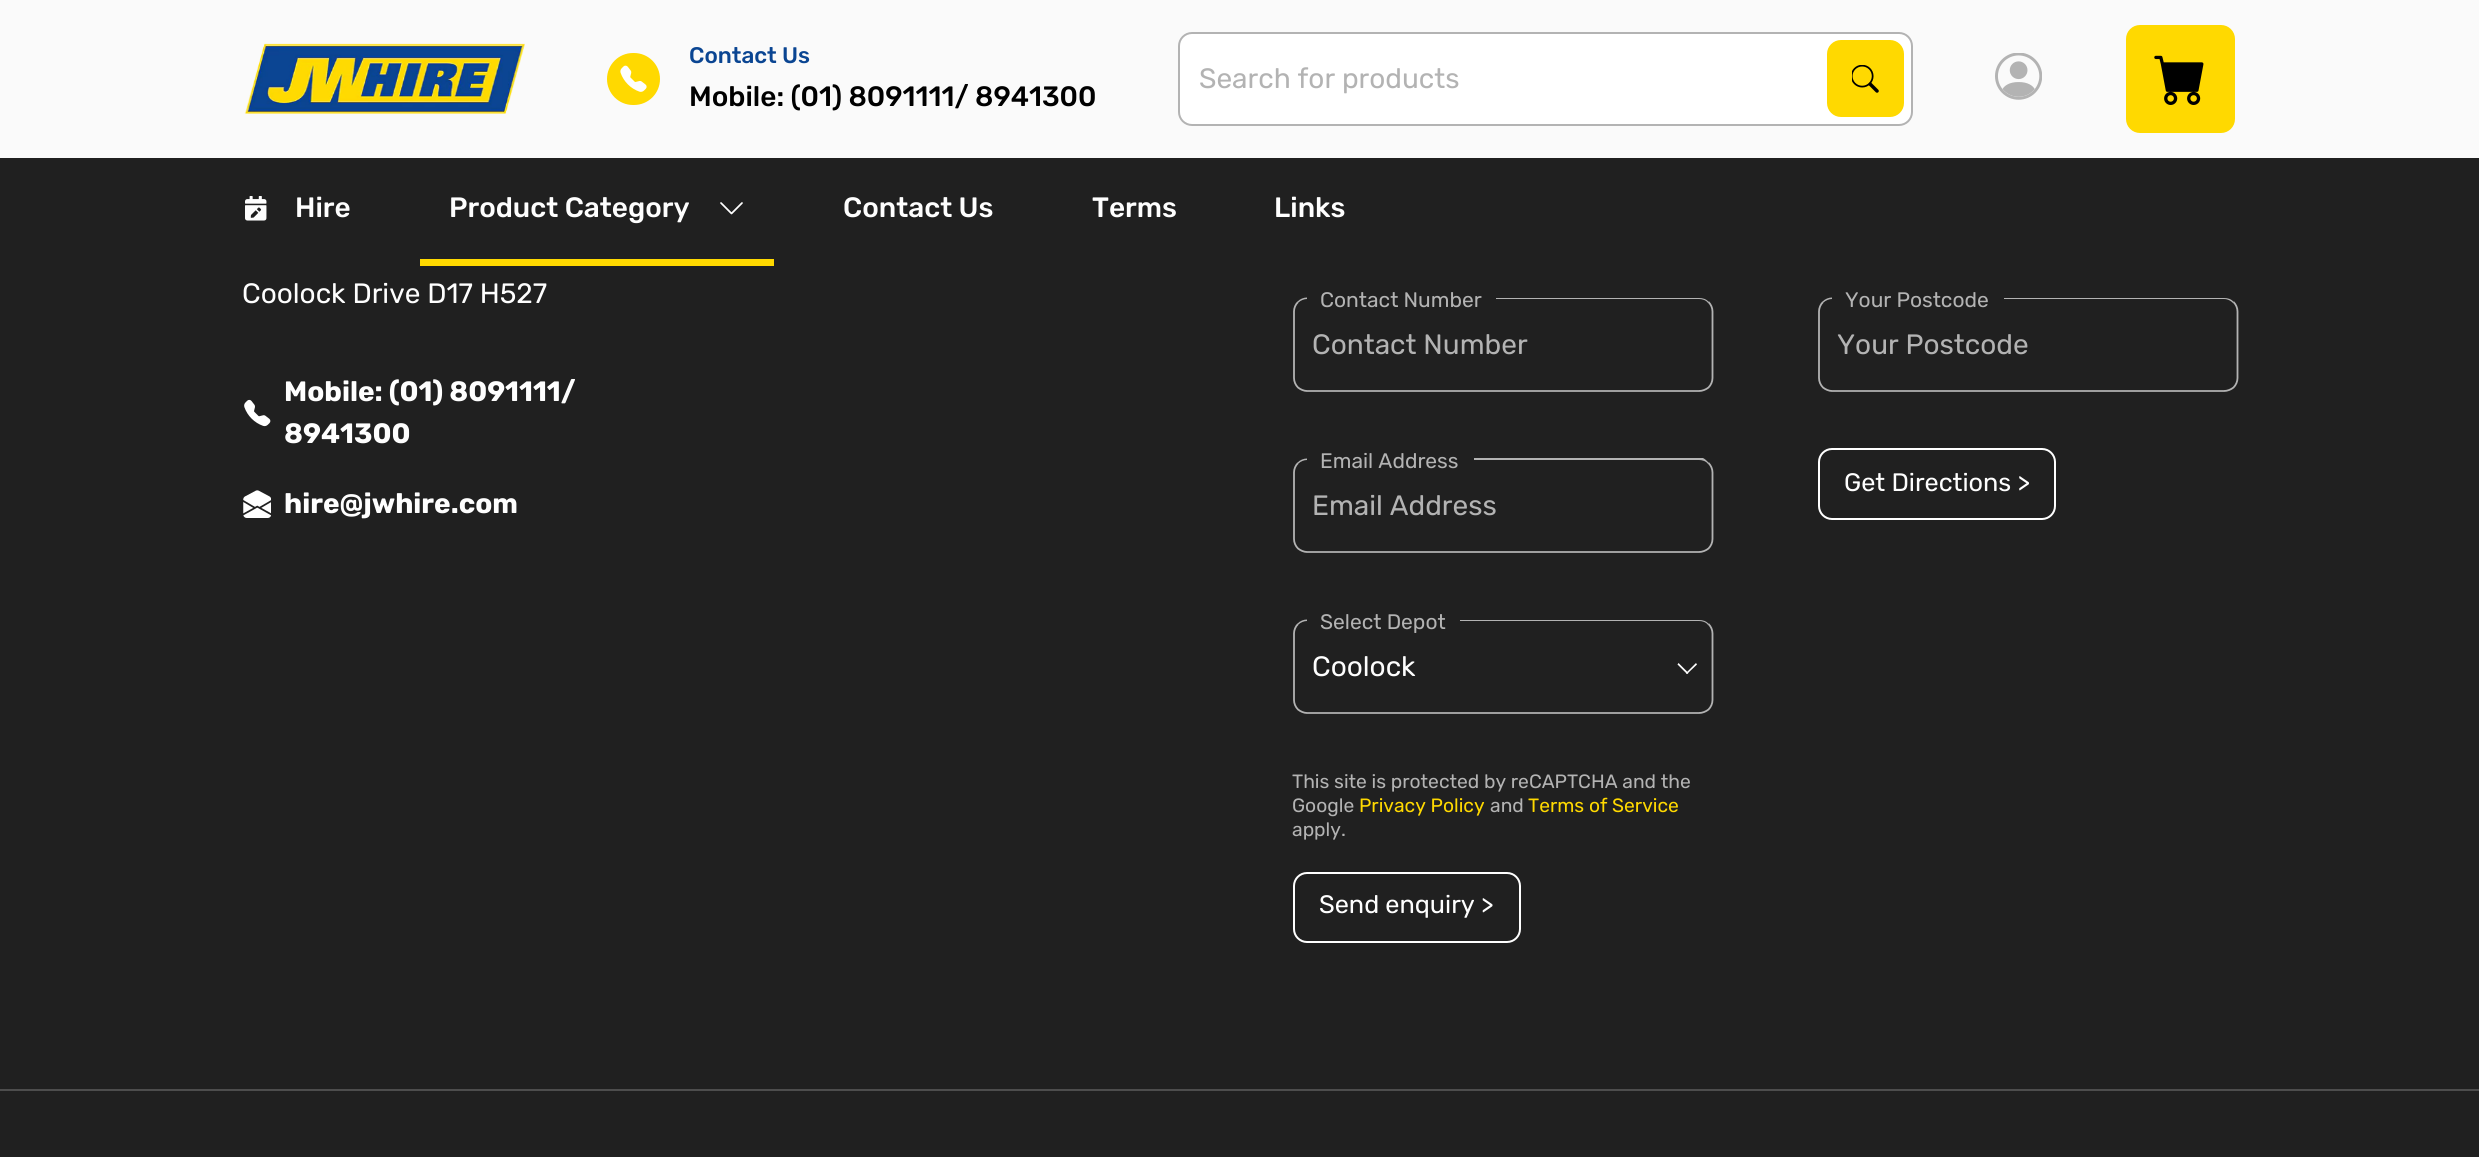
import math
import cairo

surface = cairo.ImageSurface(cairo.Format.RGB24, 2479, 1157)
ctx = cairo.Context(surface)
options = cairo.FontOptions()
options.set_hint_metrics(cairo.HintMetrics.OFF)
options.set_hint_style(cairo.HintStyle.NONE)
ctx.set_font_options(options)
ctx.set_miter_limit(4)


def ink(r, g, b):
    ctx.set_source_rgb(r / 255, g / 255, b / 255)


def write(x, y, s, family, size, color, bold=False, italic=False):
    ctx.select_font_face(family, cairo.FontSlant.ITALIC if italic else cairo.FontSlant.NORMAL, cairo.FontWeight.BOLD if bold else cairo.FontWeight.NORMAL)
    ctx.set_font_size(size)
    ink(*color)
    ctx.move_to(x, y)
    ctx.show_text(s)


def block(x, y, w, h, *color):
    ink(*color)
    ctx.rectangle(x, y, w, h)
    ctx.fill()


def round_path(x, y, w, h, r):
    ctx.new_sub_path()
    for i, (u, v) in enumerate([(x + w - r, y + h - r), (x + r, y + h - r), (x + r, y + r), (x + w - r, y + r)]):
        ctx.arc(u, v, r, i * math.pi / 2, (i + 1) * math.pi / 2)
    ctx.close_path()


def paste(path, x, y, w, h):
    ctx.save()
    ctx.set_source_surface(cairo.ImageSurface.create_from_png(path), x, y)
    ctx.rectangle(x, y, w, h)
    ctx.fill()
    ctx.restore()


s1 = dict(family="Rubik Medium", size=22.5, color=(10, 69, 146))
s2 = dict(family="Rubik Medium", size=28, color=(0, 0, 0))
s3 = dict(family="Rubik", size=28, color=(179, 179, 179))
s4 = dict(family="Rubik Medium", size=28, color=(254, 254, 254))
s5 = dict(family="Rubik", size=28, color=(254, 254, 254))
s6 = dict(family="Rubik", size=28, color=(254, 254, 254), bold=True)
s7 = dict(family="Rubik", size=21, color=(179, 179, 179))
s8 = dict(family="Rubik", size=19.25, color=(179, 179, 179))
s9 = dict(family="Rubik", size=19.25, color=(255, 217, 0))
s10 = dict(family="Rubik", size=25.25, color=(254, 254, 254))

ink(32, 32, 32)
ctx.paint()
block(0, 0, 2479, 158, 250, 250, 250)
paste("pic1.png", 244, 43, 281, 71)
ink(255, 217, 0)
round_path(607, 53, 53, 52, 26)
ctx.fill()
paste("pic2.png", 620, 65, 27, 27)
write(689, 63, "Contact Us", **s1)
write(689, 106, "Mobile: (01) 8091111/ 8941300", **s2)
ink(255, 255, 255)
round_path(1179, 33, 733, 92, 13)
ctx.fill_preserve()
ink(179, 179, 179)
ctx.stroke()
write(1199, 88, "Search for products", **s3)
ink(255, 217, 0)
round_path(1827, 40, 77, 77, 14)
ctx.fill()
paste("pic3.png", 1852, 65, 27, 28)
paste("pic4.png", 1995, 53, 47, 47)
round_path(2126, 25, 109, 108, 14)
ctx.fill()
paste("pic5.png", 2154, 55, 50, 50)
paste("pic6.png", 245, 196, 22, 25)
write(295, 217, "Hire", **s4)
block(420, 259, 354, 7, 255, 217, 0)
write(449, 217, "Product Category", **s4)
paste("pic7.png", 720, 202, 23, 13)
write(843, 217, "Contact Us", **s4)
write(1092, 217, "Terms", **s4)
write(1274, 217, "Links", **s4)
write(242, 303, "Coolock Drive D17 H527", **s5)
write(284, 401, "Mobile: (01) 8091111/", **s6)
paste("pic8.png", 244, 399, 27, 28)
write(284, 443, "8941300", **s6)
paste("pic9.png", 243, 490, 28, 28)
write(284, 513, "hire@jwhire.com", **s6)
ctx.new_path()
ctx.move_to(1708.5, 302)
ctx.curve_to(1711, 304.5, 1712.5, 308, 1712.5, 311.5)
ctx.line_to(1712.5, 378)
ctx.curve_to(1712.5, 381.5, 1711, 385, 1708.5, 387.5)
ctx.curve_to(1706, 389.5, 1702.5, 391, 1699, 391)
ctx.line_to(1307, 391)
ctx.curve_to(1304, 391, 1300.5, 389.5, 1298, 387.5)
ctx.curve_to(1295.5, 385, 1294, 381.5, 1294, 378)
ctx.line_to(1294, 311.5)
ctx.curve_to(1294, 308, 1295.5, 304.5, 1298, 302)
ink(179, 179, 179)
ctx.set_line_width(1.8)
ctx.stroke()
ctx.new_path()
ctx.move_to(1307, 297.5)
ctx.line_to(1307, 299)
ctx.curve_to(1304, 299, 1300.5, 300.5, 1298.5, 302.5)
ctx.line_to(1297.5, 301.5)
ctx.curve_to(1300, 299, 1303.5, 297.5, 1307, 297.5)
ctx.close_path()
ctx.fill()
write(1320, 307, "Contact Number", **s7)
ctx.new_path()
ctx.move_to(1496, 299)
ctx.line_to(1496, 298)
ctx.line_to(1699, 298)
ctx.curve_to(1703, 298, 1706, 299, 1709, 302)
ctx.line_to(1708, 303)
ctx.curve_to(1706, 300, 1702, 299, 1699, 299)
ctx.close_path()
ctx.fill()
write(1312, 354, "Contact Number", **s3)
ctx.new_path()
ctx.move_to(1708.5, 463)
ctx.curve_to(1711, 465.5, 1712.5, 469, 1712.5, 472.5)
ctx.line_to(1712.5, 539)
ctx.curve_to(1712.5, 542.5, 1711, 546, 1708.5, 548.5)
ctx.curve_to(1706, 550.5, 1702.5, 552, 1699, 552)
ctx.line_to(1307, 552)
ctx.curve_to(1304, 552, 1300.5, 550.5, 1298, 548.5)
ctx.curve_to(1295.5, 546, 1294, 542.5, 1294, 539)
ctx.line_to(1294, 472.5)
ctx.curve_to(1294, 469, 1295.5, 465.5, 1298, 463)
ctx.stroke()
ctx.new_path()
ctx.move_to(1307, 458.5)
ctx.line_to(1307, 460)
ctx.curve_to(1304, 460, 1300.5, 461.5, 1298.5, 463.5)
ctx.line_to(1297.5, 462.5)
ctx.curve_to(1300, 460, 1303.5, 458.5, 1307, 458.5)
ctx.close_path()
ctx.fill()
write(1320, 468, "Email Address", **s7)
ctx.new_path()
ctx.move_to(1474, 460)
ctx.line_to(1474, 458)
ctx.line_to(1703, 458)
ctx.curve_to(1705, 459, 1707, 461, 1709, 463)
ctx.line_to(1708, 464)
ctx.curve_to(1706, 461, 1702, 460, 1699, 460)
ctx.close_path()
ctx.fill()
write(1312, 515, "Email Address", **s3)
ctx.new_path()
ctx.move_to(1708.5, 624)
ctx.curve_to(1711, 626.5, 1712.5, 630, 1712.5, 633.5)
ctx.line_to(1712.5, 700)
ctx.curve_to(1712.5, 703.5, 1711, 707, 1708.5, 709.5)
ctx.curve_to(1706, 711.5, 1702.5, 713, 1699, 713)
ctx.line_to(1307, 713)
ctx.curve_to(1304, 713, 1300.5, 711.5, 1298, 709.5)
ctx.curve_to(1295.5, 707, 1294, 703.5, 1294, 700)
ctx.line_to(1294, 633.5)
ctx.curve_to(1294, 630, 1295.5, 626.5, 1298, 624)
ctx.stroke()
ctx.new_path()
ctx.move_to(1307, 619.5)
ctx.line_to(1307, 621)
ctx.curve_to(1304, 621, 1300.5, 622.5, 1298.5, 624.5)
ctx.line_to(1297.5, 623.5)
ctx.curve_to(1300, 621, 1303.5, 619.5, 1307, 619.5)
ctx.close_path()
ctx.fill()
write(1320, 629, "Select Depot", **s7)
ctx.new_path()
ctx.move_to(1460, 620)
ctx.line_to(1699, 620)
ctx.curve_to(1703, 620, 1706, 621, 1709, 624)
ctx.line_to(1708, 625)
ctx.curve_to(1706, 622, 1702, 621, 1699, 621)
ctx.line_to(1460, 621)
ctx.close_path()
ctx.fill()
write(1312, 676, "Coolock", **s5)
ink(255, 255, 255)
ctx.new_path()
ctx.move_to(1697, 664.5)
ctx.line_to(1687, 674)
ctx.line_to(1686, 673)
ctx.line_to(1696, 663)
ctx.close_path()
ctx.fill()
ctx.new_path()
ctx.move_to(1688.5, 673)
ctx.line_to(1687, 674)
ctx.line_to(1677.5, 664.5)
ctx.line_to(1678.5, 663)
ctx.close_path()
ctx.fill()
write(1292, 788, "This site is protected by reCAPTCHA and the", **s8)
write(1292, 812, "Google", **s8)
write(1359, 812, "Privacy Policy", **s9)
write(1490, 812, "and", **s8)
write(1528, 812, "Terms of Service", **s9)
write(1292, 836, "apply.", **s8)
round_path(1294, 873, 226, 69, 13)
ink(255, 255, 255)
ctx.set_line_width(2)
ctx.stroke()
write(1319, 913, "Send enquiry >", **s10)
ctx.new_path()
ctx.move_to(2233.5, 302)
ctx.curve_to(2236, 304.5, 2237.5, 308, 2237.5, 311.5)
ctx.line_to(2237.5, 378)
ctx.curve_to(2237.5, 381.5, 2236, 385, 2233.5, 387.5)
ctx.curve_to(2231, 389.5, 2227.5, 391, 2224, 391)
ctx.line_to(1832, 391)
ctx.curve_to(1829, 391, 1825.5, 389.5, 1823, 387.5)
ctx.curve_to(1820.5, 385, 1819, 381.5, 1819, 378)
ctx.line_to(1819, 311.5)
ctx.curve_to(1819, 308, 1820.5, 304.5, 1823, 302)
ink(179, 179, 179)
ctx.set_line_width(1.8)
ctx.stroke()
ctx.new_path()
ctx.move_to(1832, 297.5)
ctx.line_to(1832, 299)
ctx.curve_to(1829, 299, 1825.5, 300.5, 1823.5, 302.5)
ctx.line_to(1822.5, 301.5)
ctx.curve_to(1825, 299, 1828.5, 297.5, 1832, 297.5)
ctx.close_path()
ctx.fill()
write(1845, 307, "Your Postcode", **s7)
ctx.new_path()
ctx.move_to(2004, 298)
ctx.line_to(2224, 298)
ctx.curve_to(2228, 298, 2231, 299, 2234, 302)
ctx.line_to(2233, 303)
ctx.curve_to(2231, 301, 2228, 299, 2224, 299)
ctx.line_to(2004, 299)
ctx.close_path()
ctx.fill()
write(1837, 354, "Your Postcode", **s3)
round_path(1819, 449, 236, 70, 13)
ink(255, 255, 255)
ctx.set_line_width(2)
ctx.stroke()
write(1844, 491, "Get Directions >", **s10)
block(0, 1089, 2479, 2, 77, 77, 77)
surface.write_to_png("screenshot.png")
